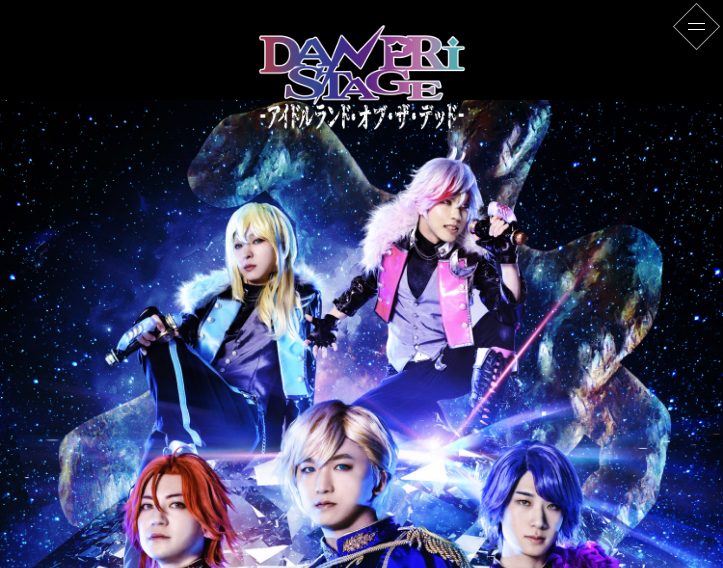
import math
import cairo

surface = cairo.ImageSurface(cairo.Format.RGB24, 723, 568)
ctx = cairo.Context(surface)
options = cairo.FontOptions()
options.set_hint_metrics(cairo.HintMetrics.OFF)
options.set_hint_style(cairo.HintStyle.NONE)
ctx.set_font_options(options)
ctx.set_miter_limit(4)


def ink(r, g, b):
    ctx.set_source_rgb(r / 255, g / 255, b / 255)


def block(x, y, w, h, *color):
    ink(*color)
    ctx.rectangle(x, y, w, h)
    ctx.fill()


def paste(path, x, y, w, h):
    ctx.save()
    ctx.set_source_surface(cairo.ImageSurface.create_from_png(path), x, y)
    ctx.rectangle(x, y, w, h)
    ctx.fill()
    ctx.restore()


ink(0, 0, 0)
ctx.paint()
paste("pic2.png", 0, 100, 723, 468)
paste("pic1.png", 258, 24, 208, 106)
ctx.new_path()
ctx.move_to(696.5, 3.5)
ctx.line_to(719.5, 26.5)
ctx.line_to(696.5, 49.5)
ctx.line_to(673.5, 26.5)
ctx.close_path()
ink(153, 153, 153)
ctx.set_line_width(1)
ctx.stroke()
block(688, 23, 17, 1, 255, 255, 255)
block(688, 29, 17, 1, 255, 255, 255)
surface.write_to_png("screenshot.png")
